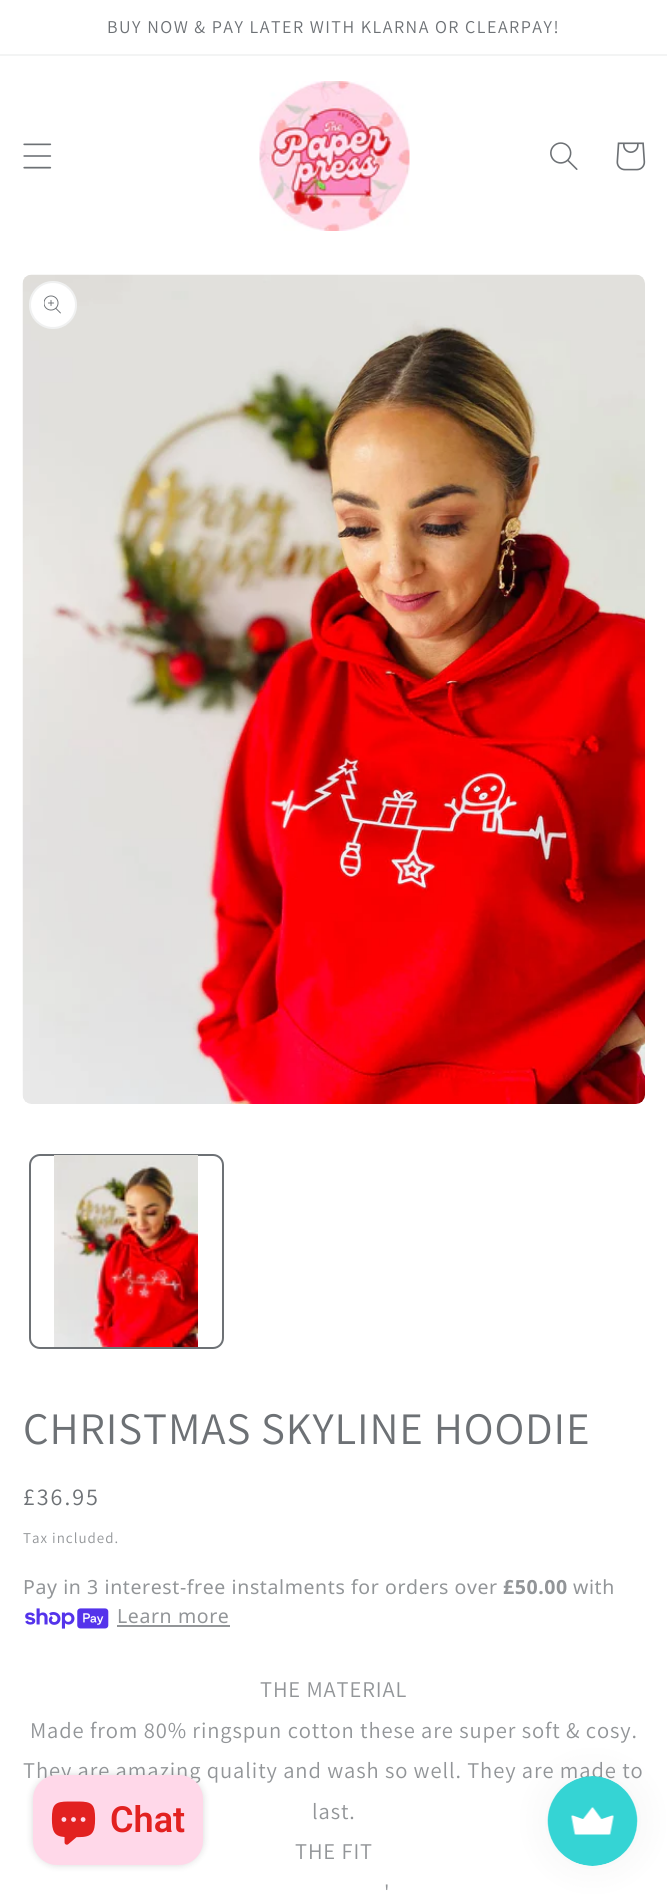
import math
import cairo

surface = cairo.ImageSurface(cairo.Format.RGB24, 667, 1895)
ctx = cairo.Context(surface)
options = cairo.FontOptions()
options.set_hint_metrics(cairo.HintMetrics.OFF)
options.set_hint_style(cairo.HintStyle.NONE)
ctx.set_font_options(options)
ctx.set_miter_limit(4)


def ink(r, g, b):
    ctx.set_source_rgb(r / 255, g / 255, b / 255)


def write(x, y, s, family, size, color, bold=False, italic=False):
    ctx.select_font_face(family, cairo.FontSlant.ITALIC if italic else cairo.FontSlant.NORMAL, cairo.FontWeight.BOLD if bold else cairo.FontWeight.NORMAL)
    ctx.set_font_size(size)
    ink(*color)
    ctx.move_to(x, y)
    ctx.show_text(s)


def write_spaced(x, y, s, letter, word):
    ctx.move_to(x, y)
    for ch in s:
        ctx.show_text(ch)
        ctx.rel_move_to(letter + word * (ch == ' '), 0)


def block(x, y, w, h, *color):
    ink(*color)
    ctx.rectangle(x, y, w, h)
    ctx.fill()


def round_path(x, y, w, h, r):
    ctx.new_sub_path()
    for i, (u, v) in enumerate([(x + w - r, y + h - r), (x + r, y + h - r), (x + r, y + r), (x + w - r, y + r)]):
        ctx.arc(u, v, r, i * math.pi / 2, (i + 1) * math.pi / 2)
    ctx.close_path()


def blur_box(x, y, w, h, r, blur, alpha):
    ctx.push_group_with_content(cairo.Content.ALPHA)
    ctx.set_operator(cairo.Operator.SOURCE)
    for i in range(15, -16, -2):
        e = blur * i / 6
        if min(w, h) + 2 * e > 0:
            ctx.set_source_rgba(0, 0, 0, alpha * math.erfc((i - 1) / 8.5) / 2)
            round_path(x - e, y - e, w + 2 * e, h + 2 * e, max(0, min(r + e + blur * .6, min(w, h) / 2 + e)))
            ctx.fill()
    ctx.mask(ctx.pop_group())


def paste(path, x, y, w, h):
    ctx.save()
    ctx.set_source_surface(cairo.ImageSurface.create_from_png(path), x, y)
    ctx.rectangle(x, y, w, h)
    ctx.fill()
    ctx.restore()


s1 = dict(family="Roboto SemiBold", size=36, color=(226, 33, 32))

ink(255, 255, 255)
ctx.paint()
block(0, 54, 667, 2, 243, 244, 244)
ctx.select_font_face("Assistant")
ctx.set_font_size(18)
ink(109, 113, 117)
write_spaced(107, 33, "BUY NOW & PAY LATER WITH KLARNA OR CLEARPAY!", 1.5, 0)
paste("pic1.png", 23, 143, 29, 26)
paste("pic2.png", 259, 81, 151, 150)
paste("pic3.png", 550, 142, 28, 28)
paste("pic4.png", 616, 142, 30, 29)
paste("pic5.png", 22, 274, 623, 830)
ink(255, 255, 255)
ctx.arc(53, 305, 24, 0, 2 * math.pi)
ctx.fill()
ctx.arc(53, 305, 23, 0, 2 * math.pi)
ctx.set_source_rgba(0.427, 0.443, 0.459, 0.1)
ctx.stroke()
paste("pic6.png", 44, 295, 17, 19)
round_path(30, 1155, 193, 193, 10)
ink(109, 113, 117)
ctx.stroke()
paste("pic7.png", 54, 1155, 144, 192)
ctx.set_font_size(45)
write_spaced(23, 1444, "CHRISTMAS SKYLINE HOODIE", 0.9, 0)
ctx.set_font_size(24)
write_spaced(23, 1505, "£36.95", 2, 0)
ctx.set_font_size(15)
ink(146, 149, 152)
write_spaced(23, 1543, "Tax included.", 1, 0)
ctx.select_font_face("Noto Sans")
ctx.set_font_size(19.5)
write_spaced(23, 1594, "Pay in 3 interest-free instalments for orders over", 0.6, 0)
ctx.select_font_face("Noto Sans", cairo.FontSlant.NORMAL, cairo.FontWeight.BOLD)
write_spaced(503, 1594, "£50.00", 0.6, 0)
ctx.select_font_face("Noto Sans")
write_spaced(573, 1594, "with", 0.6, 0)
paste("pic8.png", 25, 1608, 84, 21)
write_spaced(117, 1623, "Learn more", 0.6, 0)
block(117, 1625, 113, 2, 146, 149, 152)
ctx.select_font_face("Assistant")
ctx.set_font_size(22.5)
write_spaced(260, 1697, "THE MATERIAL", 0.9, 0)
write_spaced(30, 1738, "Made from 80% ringspun cotton these are super soft & cosy.", 0.9, 0)
write_spaced(23, 1778, "They are amazing quality and wash so well. They are made to", 0.9, 0)
write_spaced(312, 1819, "last.", 0.9, 0)
write_spaced(295, 1859, "THE FIT", 0.9, 0)
write_spaced(384, 1900, "'", 0.9, 0)
ink(0, 0, 0)
blur_box(33, 1775, 170, 90, 24, 4, 0.15)
ink(255, 216, 233)
round_path(33, 1775, 170, 90, 24)
ctx.fill()
paste("pic9.png", 51, 1801, 45, 44)
write(110, 1832, "Chat", **s1)
ink(0, 0, 0)
blur_box(548, 1776, 90, 90, 45, 19, 0.05)
paste("pic10.png", 547, 1776, 91, 90)
surface.write_to_png("screenshot.png")
